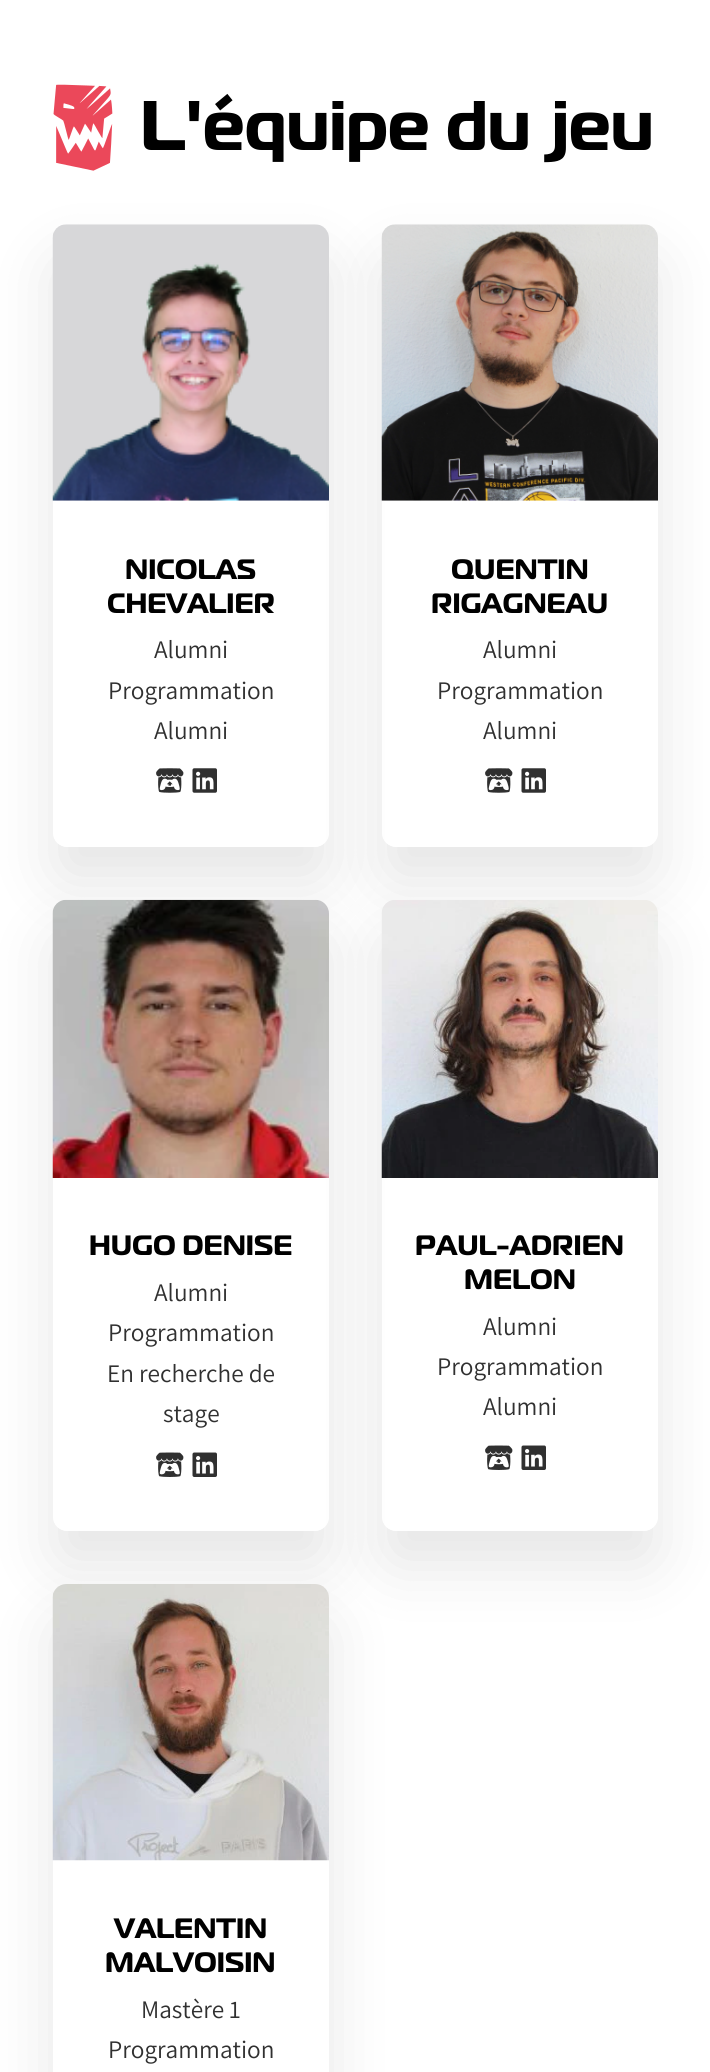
import math
import cairo

surface = cairo.ImageSurface(cairo.Format.RGB24, 710, 2072)
ctx = cairo.Context(surface)
options = cairo.FontOptions()
options.set_hint_metrics(cairo.HintMetrics.OFF)
options.set_hint_style(cairo.HintStyle.NONE)
ctx.set_font_options(options)
ctx.set_miter_limit(4)


def ink(r, g, b):
    ctx.set_source_rgb(r / 255, g / 255, b / 255)


def write(x, y, s, family, size, color, bold=False, italic=False):
    ctx.select_font_face(family, cairo.FontSlant.ITALIC if italic else cairo.FontSlant.NORMAL, cairo.FontWeight.BOLD if bold else cairo.FontWeight.NORMAL)
    ctx.set_font_size(size)
    ink(*color)
    ctx.move_to(x, y)
    ctx.show_text(s)


def round_path(x, y, w, h, r):
    ctx.new_sub_path()
    for i, (u, v) in enumerate([(x + w - r, y + h - r), (x + r, y + h - r), (x + r, y + r), (x + w - r, y + r)]):
        ctx.arc(u, v, r, i * math.pi / 2, (i + 1) * math.pi / 2)
    ctx.close_path()


def blur_box(x, y, w, h, r, blur, alpha):
    ctx.push_group_with_content(cairo.Content.ALPHA)
    ctx.set_operator(cairo.Operator.SOURCE)
    for i in range(15, -16, -2):
        e = blur * i / 6
        if min(w, h) + 2 * e > 0:
            ctx.set_source_rgba(0, 0, 0, alpha * math.erfc((i - 1) / 8.5) / 2)
            round_path(x - e, y - e, w + 2 * e, h + 2 * e, max(0, min(r + e + blur * .6, min(w, h) / 2 + e)))
            ctx.fill()
    ctx.mask(ctx.pop_group())


def paste(path, x, y, w, h):
    ctx.save()
    ctx.set_source_surface(cairo.ImageSurface.create_from_png(path), x, y)
    ctx.rectangle(x, y, w, h)
    ctx.fill()
    ctx.restore()


s1 = dict(family="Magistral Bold", size=70, color=(0, 0, 0), bold=True)
s2 = dict(family="Magistral Bold", size=28, color=(0, 0, 0), bold=True)
s3 = dict(family="Assistant", size=25.25, color=(48, 48, 48))

ink(255, 255, 255)
ctx.paint()
paste("pic1.png", 53, 84, 60, 87)
write(140, 150, "L'équipe du jeu", **s1)
ctx.save()
ctx.set_fill_rule(cairo.FillRule.EVEN_ODD)
ctx.new_path()
ctx.move_to(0, 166)
ctx.line_to(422, 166)
ctx.line_to(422, 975)
ctx.line_to(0, 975)
ctx.close_path()
ctx.move_to(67, 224)
ctx.line_to(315, 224)
ctx.curve_to(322.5, 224, 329, 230.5, 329, 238)
ctx.line_to(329, 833)
ctx.curve_to(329, 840.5, 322.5, 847, 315, 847)
ctx.line_to(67, 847)
ctx.curve_to(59.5, 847, 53, 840.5, 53, 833)
ctx.line_to(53, 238)
ctx.curve_to(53, 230.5, 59.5, 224, 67, 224)
ctx.close_path()
ctx.clip()
ink(1, 1, 1)
blur_box(53, 259, 276, 623, 14, 30.5, 0.1)
ctx.restore()
paste("pic2.png", 52, 224, 277, 277)
write(125, 579, "NICOLAS", **s2)
write(107, 613, "CHEVALIER", **s2)
write(154, 658, "Alumni", **s3)
write(108, 699, "Programmation", **s3)
write(154, 739, "Alumni", **s3)
paste("pic3.png", 156, 768, 28, 25)
paste("pic4.png", 192, 768, 25, 25)
ctx.save()
ctx.set_fill_rule(cairo.FillRule.EVEN_ODD)
ctx.new_path()
ctx.move_to(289, 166)
ctx.line_to(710, 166)
ctx.line_to(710, 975)
ctx.line_to(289, 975)
ctx.close_path()
ctx.move_to(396, 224)
ctx.line_to(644, 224)
ctx.curve_to(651.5, 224, 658, 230.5, 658, 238)
ctx.line_to(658, 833)
ctx.curve_to(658, 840.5, 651.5, 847, 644, 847)
ctx.line_to(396, 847)
ctx.curve_to(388.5, 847, 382, 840.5, 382, 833)
ctx.line_to(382, 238)
ctx.curve_to(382, 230.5, 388.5, 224, 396, 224)
ctx.close_path()
ctx.clip()
ink(1, 1, 1)
blur_box(382, 259, 276, 623, 14, 30.5, 0.1)
ctx.restore()
paste("pic5.png", 381, 224, 277, 277)
write(451, 579, "QUENTIN", **s2)
write(431, 613, "RIGAGNEAU", **s2)
write(483, 658, "Alumni", **s3)
write(437, 699, "Programmation", **s3)
write(483, 739, "Alumni", **s3)
paste("pic3.png", 485, 768, 28, 25)
paste("pic4.png", 521, 768, 25, 25)
ctx.save()
ctx.set_fill_rule(cairo.FillRule.EVEN_ODD)
ctx.new_path()
ctx.move_to(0, 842)
ctx.line_to(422, 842)
ctx.line_to(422, 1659)
ctx.line_to(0, 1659)
ctx.close_path()
ctx.move_to(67, 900)
ctx.line_to(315, 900)
ctx.curve_to(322.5, 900, 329, 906.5, 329, 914)
ctx.line_to(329, 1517)
ctx.curve_to(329, 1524.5, 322.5, 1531, 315, 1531)
ctx.line_to(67, 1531)
ctx.curve_to(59.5, 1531, 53, 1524.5, 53, 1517)
ctx.line_to(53, 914)
ctx.curve_to(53, 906.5, 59.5, 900, 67, 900)
ctx.close_path()
ctx.clip()
ink(1, 1, 1)
blur_box(53, 935, 276, 631, 14, 30.5, 0.1)
ctx.restore()
paste("pic6.png", 52, 899, 277, 279)
write(89, 1255, "HUGO DENISE", **s2)
write(154, 1301, "Alumni", **s3)
write(108, 1341, "Programmation", **s3)
write(107, 1382, "En recherche de", **s3)
write(163, 1422, "stage", **s3)
paste("pic7.png", 156, 1452, 28, 25)
paste("pic8.png", 192, 1452, 25, 25)
ctx.save()
ctx.set_fill_rule(cairo.FillRule.EVEN_ODD)
ctx.new_path()
ctx.move_to(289, 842)
ctx.line_to(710, 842)
ctx.line_to(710, 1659)
ctx.line_to(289, 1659)
ctx.close_path()
ctx.move_to(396, 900)
ctx.line_to(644, 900)
ctx.curve_to(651.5, 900, 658, 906.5, 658, 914)
ctx.line_to(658, 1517)
ctx.curve_to(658, 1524.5, 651.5, 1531, 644, 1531)
ctx.line_to(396, 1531)
ctx.curve_to(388.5, 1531, 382, 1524.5, 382, 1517)
ctx.line_to(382, 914)
ctx.curve_to(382, 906.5, 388.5, 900, 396, 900)
ctx.close_path()
ctx.clip()
ink(1, 1, 1)
blur_box(382, 935, 276, 631, 14, 30.5, 0.1)
ctx.restore()
paste("pic9.png", 381, 900, 277, 278)
write(415, 1255, "PAUL-ADRIEN", **s2)
write(464, 1289, "MELON", **s2)
write(483, 1335, "Alumni", **s3)
write(437, 1375, "Programmation", **s3)
write(483, 1415, "Alumni", **s3)
paste("pic7.png", 485, 1445, 28, 25)
paste("pic8.png", 521, 1445, 25, 25)
ctx.save()
ctx.set_fill_rule(cairo.FillRule.EVEN_ODD)
ctx.new_path()
ctx.move_to(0, 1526)
ctx.line_to(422, 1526)
ctx.line_to(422, 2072)
ctx.line_to(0, 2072)
ctx.close_path()
ctx.move_to(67, 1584)
ctx.line_to(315, 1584)
ctx.curve_to(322.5, 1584, 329, 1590.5, 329, 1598)
ctx.line_to(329, 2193)
ctx.curve_to(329, 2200.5, 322.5, 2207, 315, 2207)
ctx.line_to(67, 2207)
ctx.curve_to(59.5, 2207, 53, 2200.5, 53, 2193)
ctx.line_to(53, 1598)
ctx.curve_to(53, 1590.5, 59.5, 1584, 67, 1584)
ctx.close_path()
ctx.clip()
ink(1, 1, 1)
blur_box(53, 1619, 276, 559, 14, 30.5, 0.1)
ctx.restore()
paste("pic10.png", 52, 1584, 277, 277)
write(114, 1938, "VALENTIN", **s2)
write(105, 1972, "MALVOISIN", **s2)
write(141, 2018, "Mastère 1", **s3)
write(108, 2058, "Programmation", **s3)
surface.write_to_png("screenshot.png")
